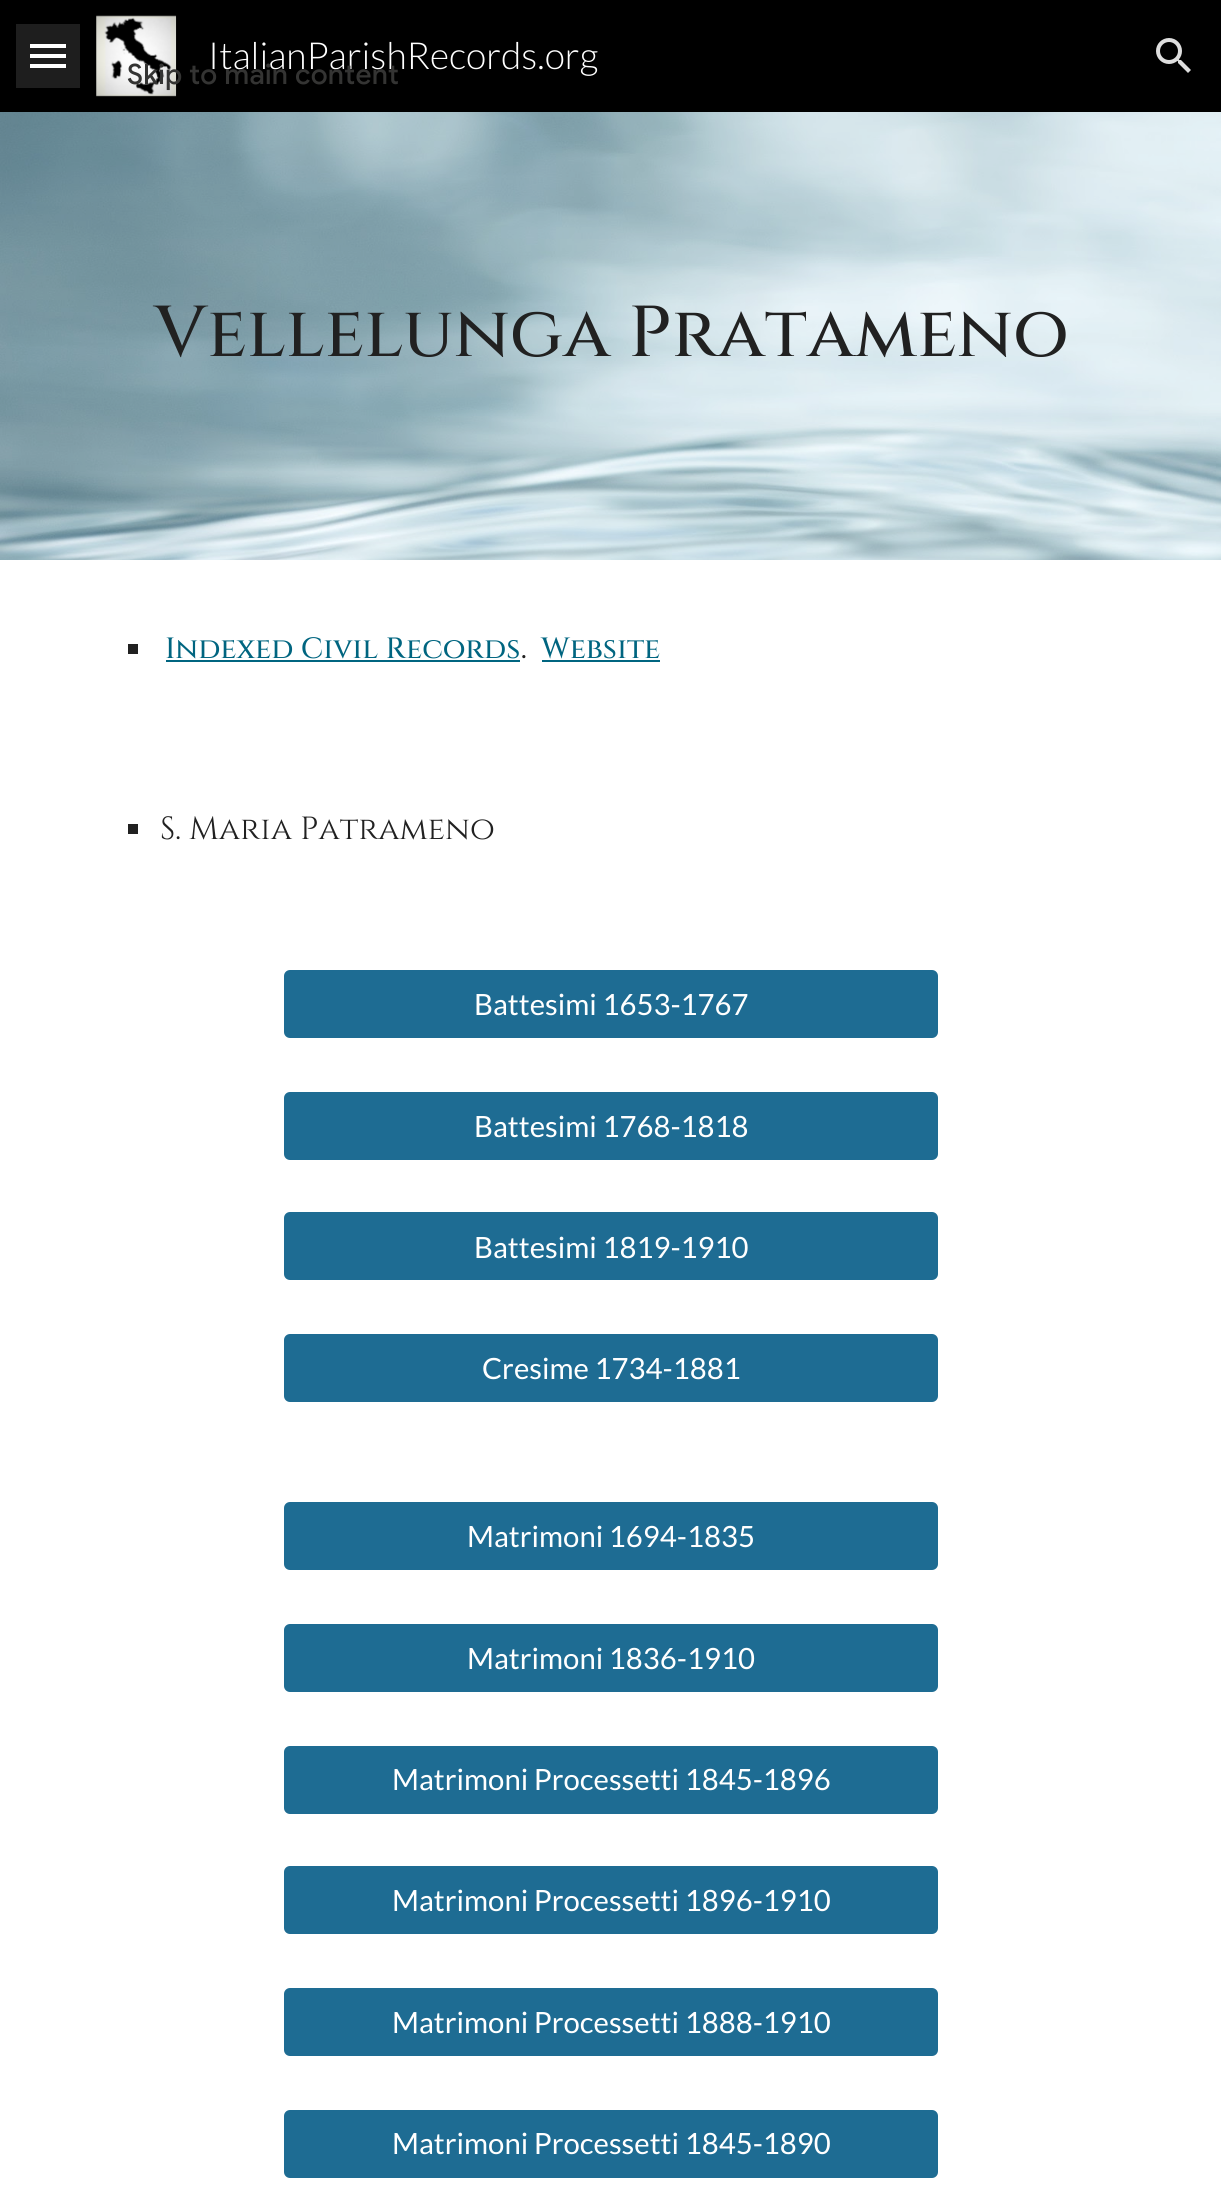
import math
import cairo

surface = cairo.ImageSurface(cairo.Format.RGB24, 1221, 2200)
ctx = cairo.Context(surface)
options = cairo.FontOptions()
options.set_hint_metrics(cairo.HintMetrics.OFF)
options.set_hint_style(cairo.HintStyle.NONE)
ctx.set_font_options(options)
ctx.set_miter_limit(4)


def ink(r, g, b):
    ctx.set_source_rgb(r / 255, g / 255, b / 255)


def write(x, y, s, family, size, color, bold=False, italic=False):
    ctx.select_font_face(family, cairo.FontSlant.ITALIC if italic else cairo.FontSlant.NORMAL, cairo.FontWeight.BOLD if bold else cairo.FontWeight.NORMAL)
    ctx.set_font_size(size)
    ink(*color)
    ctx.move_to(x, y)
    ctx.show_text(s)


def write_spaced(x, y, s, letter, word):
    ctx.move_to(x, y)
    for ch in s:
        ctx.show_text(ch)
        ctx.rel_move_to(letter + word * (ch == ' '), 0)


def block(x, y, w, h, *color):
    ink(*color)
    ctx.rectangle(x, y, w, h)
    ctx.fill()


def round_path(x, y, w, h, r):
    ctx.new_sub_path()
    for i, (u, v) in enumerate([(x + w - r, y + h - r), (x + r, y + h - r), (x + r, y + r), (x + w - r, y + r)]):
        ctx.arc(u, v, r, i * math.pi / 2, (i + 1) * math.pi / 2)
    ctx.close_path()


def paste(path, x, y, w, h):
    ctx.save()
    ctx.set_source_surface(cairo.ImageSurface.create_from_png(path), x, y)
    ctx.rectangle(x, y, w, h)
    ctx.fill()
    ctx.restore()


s1 = dict(family="Lato Light", size=37.25, color=(255, 255, 255))
s2 = dict(family="Cinzel Medium", size=72, color=(33, 33, 33))
s3 = dict(family="Cinzel Medium", size=29.3, color=(0, 101, 128))
s4 = dict(family="Cinzel Medium", size=29.3, color=(33, 33, 33))
s5 = dict(family="Cinzel", size=32, color=(33, 33, 33))
s6 = dict(family="Lato", size=29.3, color=(255, 255, 255))

ink(255, 255, 255)
ctx.paint()
block(0, 0, 1221, 112, 0, 0, 0)
block(30, 44, 36, 4, 255, 255, 255)
block(30, 54, 36, 4, 255, 255, 255)
block(30, 64, 36, 4, 255, 255, 255)
ctx.set_source_rgba(1, 1, 1, 0.12)
ctx.rectangle(16, 24, 64, 64)
ctx.fill()
paste("pic1.png", 96, 15, 81, 82)
write(208, 69, "ItalianParishRecords.org", **s1)
paste("pic2.png", 1156, 38, 35, 35)
paste("pic3.png", 0, 112, 1221, 448)
write(154, 356, "Vellelunga Pratameno", **s2)
block(128, 644, 10, 10, 33, 33, 33)
write(165, 658, "Indexed Civil Records", **s3)
block(166, 660, 354, 2, 0, 101, 128)
write(521, 658, ".", **s4)
write(541, 658, "Website", **s3)
block(542, 660, 118, 2, 0, 101, 128)
block(128, 824, 10, 10, 33, 33, 33)
write(160, 839, "S. Maria Patrameno", **s5)
ink(30, 108, 147)
round_path(284, 970, 654, 68, 6)
ctx.fill()
write(474, 1015, "Battesimi 1653-1767", **s6)
ink(30, 108, 147)
round_path(284, 1092, 654, 68, 6)
ctx.fill()
write(474, 1137, "Battesimi 1768-1818", **s6)
ink(30, 108, 147)
round_path(284, 1212, 654, 68, 6)
ctx.fill()
write(474, 1258, "Battesimi 1819-1910", **s6)
ink(30, 108, 147)
round_path(284, 1334, 654, 68, 6)
ctx.fill()
write(482, 1379, "Cresime 1734-1881", **s6)
ink(30, 108, 147)
round_path(284, 1502, 654, 68, 6)
ctx.fill()
write(467, 1547, "Matrimoni 1694-1835", **s6)
ink(30, 108, 147)
round_path(284, 1624, 654, 68, 6)
ctx.fill()
write(467, 1669, "Matrimoni 1836-1910", **s6)
ink(30, 108, 147)
round_path(284, 1746, 654, 68, 6)
ctx.fill()
write(392, 1790, "Matrimoni Processetti 1845-1896", **s6)
ink(30, 108, 147)
round_path(284, 1866, 654, 68, 6)
ctx.fill()
write(392, 1911, "Matrimoni Processetti 1896-1910", **s6)
ink(30, 108, 147)
round_path(284, 1988, 654, 68, 6)
ctx.fill()
write(392, 2033, "Matrimoni Processetti 1888-1910", **s6)
ink(30, 108, 147)
round_path(284, 2110, 654, 68, 6)
ctx.fill()
write(392, 2154, "Matrimoni Processetti 1845-1890", **s6)
ctx.select_font_face("Google Sans Medium")
ctx.set_font_size(28)
ink(52, 52, 51)
write_spaced(127, 84, "Skip to main content", 0.25, 0)
surface.write_to_png("screenshot.png")
